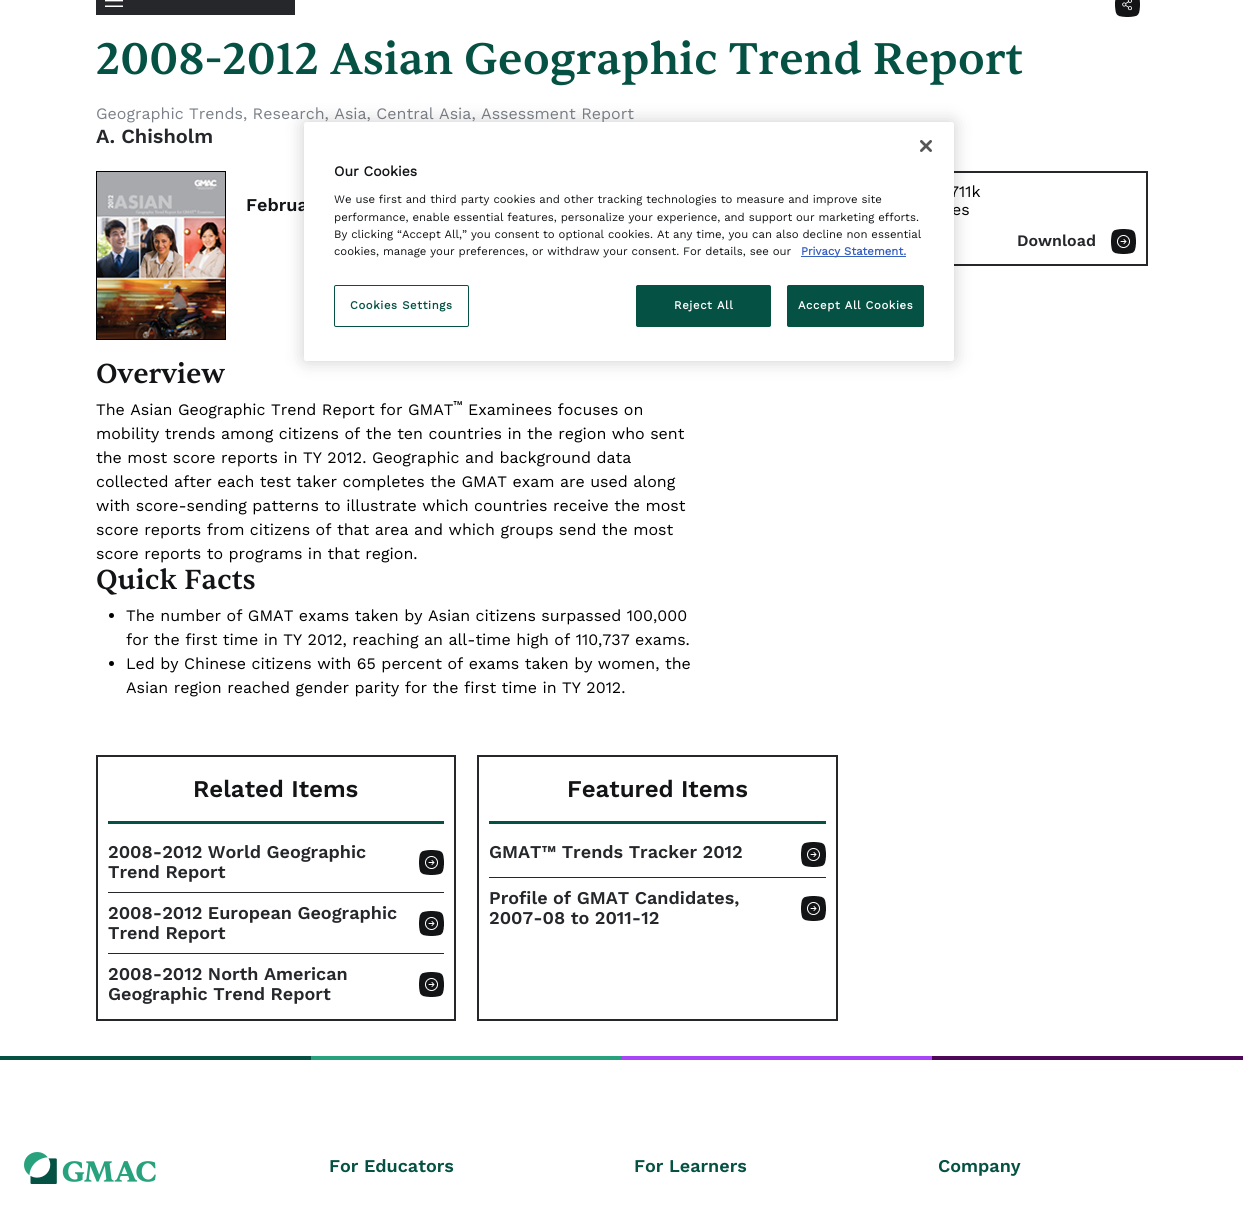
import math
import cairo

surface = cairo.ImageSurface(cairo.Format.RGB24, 1243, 1219)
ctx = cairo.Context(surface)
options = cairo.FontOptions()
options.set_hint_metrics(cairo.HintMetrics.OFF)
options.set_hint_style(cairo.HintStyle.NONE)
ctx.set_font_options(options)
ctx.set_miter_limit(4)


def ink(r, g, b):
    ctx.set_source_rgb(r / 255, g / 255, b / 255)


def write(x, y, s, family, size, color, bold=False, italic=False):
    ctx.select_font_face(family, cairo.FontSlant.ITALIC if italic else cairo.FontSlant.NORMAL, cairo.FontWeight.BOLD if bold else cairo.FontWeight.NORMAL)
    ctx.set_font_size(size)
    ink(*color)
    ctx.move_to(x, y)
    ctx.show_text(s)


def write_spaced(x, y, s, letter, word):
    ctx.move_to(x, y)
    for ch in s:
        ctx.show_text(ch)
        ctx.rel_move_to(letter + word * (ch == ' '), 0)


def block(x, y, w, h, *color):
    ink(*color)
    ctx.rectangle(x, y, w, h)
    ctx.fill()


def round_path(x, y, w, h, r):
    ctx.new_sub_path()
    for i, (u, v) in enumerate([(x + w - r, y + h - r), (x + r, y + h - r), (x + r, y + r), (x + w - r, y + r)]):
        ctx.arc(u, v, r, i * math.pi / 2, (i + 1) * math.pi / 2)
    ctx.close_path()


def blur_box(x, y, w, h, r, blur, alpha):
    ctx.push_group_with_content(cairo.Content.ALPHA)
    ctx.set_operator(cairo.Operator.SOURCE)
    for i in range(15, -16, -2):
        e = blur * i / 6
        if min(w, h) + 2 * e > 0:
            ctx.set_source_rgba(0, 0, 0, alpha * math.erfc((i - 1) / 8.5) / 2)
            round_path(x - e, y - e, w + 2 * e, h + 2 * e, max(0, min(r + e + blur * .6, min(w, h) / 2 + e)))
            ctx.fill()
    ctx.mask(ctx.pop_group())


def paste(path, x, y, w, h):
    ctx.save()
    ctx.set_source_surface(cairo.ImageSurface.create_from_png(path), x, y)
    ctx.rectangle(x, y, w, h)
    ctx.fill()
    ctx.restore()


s1 = dict(family="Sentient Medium", size=45, color=(5, 81, 67))
s2 = dict(family="Work Sans", size=16, color=(124, 129, 137))
s3 = dict(family="Work Sans SemiBold", size=20, color=(37, 39, 43))
s4 = dict(family="Work Sans SemiBold", size=18, color=(18, 20, 22))
s5 = dict(family="Work Sans", size=16, color=(0, 0, 0))
s6 = dict(family="Work Sans SemiBold", size=16, color=(37, 39, 43))
s7 = dict(family="Sentient Medium", size=28, color=(18, 20, 22))
s8 = dict(family="Work Sans", size=12, color=(0, 0, 0))
s9 = dict(family="Work Sans SemiBold", size=24, color=(18, 20, 22))
s10 = dict(family="Work Sans SemiBold", size=18, color=(37, 39, 43))
s11 = dict(family="Work Sans SemiBold", size=18, color=(5, 81, 67))
s12 = dict(family="Work Sans", size=14, color=(18, 20, 22), bold=True)
s13 = dict(family="Work Sans", size=11.38, color=(18, 20, 22))
s14 = dict(family="Work Sans", size=11.38, color=(56, 96, 190), bold=True)

ink(255, 255, 255)
ctx.paint()
block(96, 0, 199, 15, 37, 39, 43)
paste("pic1.png", 105, 0, 18, 7)
paste("pic2.png", 1115, 0, 25, 17)
write(96, 74, "2008-2012 Asian Geographic Trend Report", **s1)
write(96, 119, "Geographic Trends, Research, Asia, Central Asia, Assessment Report", **s2)
write(96, 143, "A. Chisholm", **s3)
paste("pic3.png", 96, 171, 130, 169)
write(246, 211, "Februa", **s4)
ctx.rectangle(839, 172, 308, 93)
ink(37, 39, 43)
ctx.stroke()
write(950, 197, "711k", **s5)
write(952, 215, "es", **s5)
paste("pic4.png", 1111, 229, 25, 25)
write(1017, 246, "Download", **s6)
write(96, 383, "Overview", **s7)
write(96, 415, "The Asian Geographic Trend Report for GMAT", **s5)
write(453, 409, "™", **s8)
write(468, 415, "Examinees focuses on", **s5)
write(96, 439, "mobility trends among citizens of the ten countries in the region who sent", **s5)
write(96, 463, "the most score reports in TY 2012. Geographic and background data", **s5)
write(96, 487, "collected after each test taker completes the GMAT exam are used along", **s5)
write(96, 511, "with score-sending patterns to illustrate which countries receive the most", **s5)
write(96, 535, "score reports from citizens of that area and which groups send the most", **s5)
write(96, 559, "score reports to programs in that region.", **s5)
write(96, 589, "Quick Facts", **s7)
ink(0, 0, 0)
ctx.new_path()
ctx.arc(111.5, 615.5, 2.5, 0, 2 * math.pi)
ctx.fill()
write(126, 621, "The number of GMAT exams taken by Asian citizens surpassed 100,000", **s5)
write(126, 645, "for the first time in TY 2012, reaching an all-time high of 110,737 exams.", **s5)
ctx.new_path()
ctx.arc(111.5, 663.5, 2.5, 0, 2 * math.pi)
ctx.fill()
write(126, 669, "Led by Chinese citizens with 65 percent of exams taken by women, the", **s5)
write(126, 693, "Asian region reached gender parity for the first time in TY 2012.", **s5)
ctx.rectangle(97, 756, 358, 264)
ink(37, 39, 43)
ctx.stroke()
write(193, 797, "Related Items", **s9)
block(108, 821, 336, 3, 5, 81, 67)
paste("pic4.png", 419, 850, 25, 25)
write(108, 858, "2008-2012 World Geographic", **s10)
write(108, 878, "Trend Report", **s10)
block(108, 892, 336, 1, 37, 39, 43)
paste("pic4.png", 419, 911, 25, 25)
write(108, 919, "2008-2012 European Geographic", **s10)
write(108, 939, "Trend Report", **s10)
block(108, 953, 336, 1, 37, 39, 43)
paste("pic4.png", 419, 972, 25, 25)
write(108, 980, "2008-2012 North American", **s10)
write(108, 1000, "Geographic Trend Report", **s10)
ctx.rectangle(478, 756, 359, 264)
ctx.stroke()
write(567, 797, "Featured Items", **s9)
block(489, 821, 337, 3, 5, 81, 67)
paste("pic4.png", 801, 842, 25, 25)
write(489, 858, "GMAT™ Trends Tracker 2012", **s10)
block(489, 877, 337, 1, 37, 39, 43)
paste("pic4.png", 801, 896, 25, 25)
write(489, 904, "Profile of GMAT Candidates,", **s10)
write(489, 924, "2007-08 to 2011-12", **s10)
block(0, 1056, 311, 4, 5, 81, 67)
block(311, 1056, 311, 4, 39, 162, 125)
block(622, 1056, 310, 4, 169, 69, 248)
block(932, 1056, 311, 4, 79, 7, 89)
paste("pic5.png", 24, 1152, 132, 32)
write(329, 1172, "For Educators", **s11)
write(634, 1172, "For Learners", **s11)
write(938, 1172, "Company", **s11)
ink(0, 0, 0)
blur_box(304, 122, 650, 239, 2.5, 9, 0.2)
ink(255, 255, 255)
round_path(304, 122, 650, 239, 2.5)
ctx.fill()
paste("pic6.png", 920, 140, 12, 12)
write(334, 176, "Our Cookies", **s12)
write(334, 203, "We use first and third party cookies and other tracking technologies to measure and improve site", **s13)
write(334, 221, "performance, enable essential features, personalize your experience, and support our marketing efforts.", **s13)
write(334, 238, "By clicking “Accept All,” you consent to optional cookies. At any time, you can also decline non essential", **s13)
write(334, 255, "cookies, manage your preferences, or withdraw your consent. For details, see our", **s13)
block(801, 256, 105, 1, 56, 96, 190)
write(801, 255, "Privacy Statement.", **s14)
round_path(334.5, 285.5, 134, 41, 1.5)
ink(5, 81, 67)
ctx.set_line_width(1)
ctx.stroke()
write_spaced(350, 309, "Cookies Settings", 0.6, 0)
round_path(636.5, 285.5, 134, 41, 1.5)
ctx.fill_preserve()
ctx.stroke()
ink(255, 255, 255)
write_spaced(674, 309, "Reject All", 0.6, 0)
ink(5, 81, 67)
round_path(787.5, 285.5, 136, 41, 1.5)
ctx.fill_preserve()
ctx.stroke()
ink(255, 255, 255)
write_spaced(798, 309, "Accept All Cookies", 0.6, 0)
surface.write_to_png("screenshot.png")
